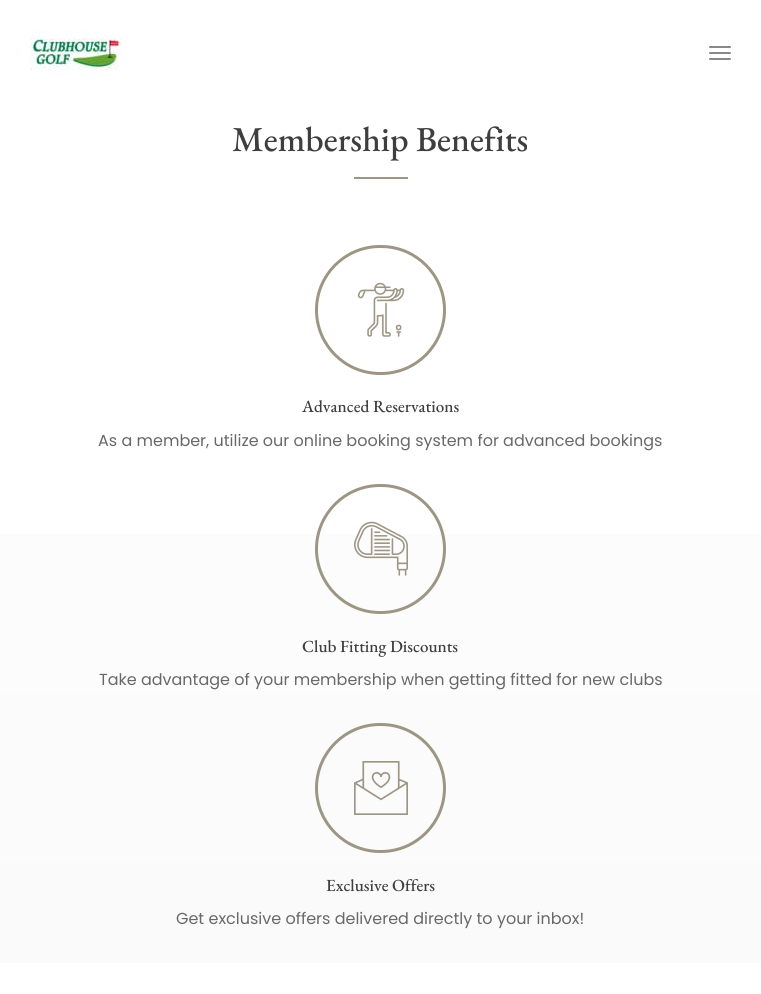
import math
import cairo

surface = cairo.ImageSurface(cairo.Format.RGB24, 761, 994)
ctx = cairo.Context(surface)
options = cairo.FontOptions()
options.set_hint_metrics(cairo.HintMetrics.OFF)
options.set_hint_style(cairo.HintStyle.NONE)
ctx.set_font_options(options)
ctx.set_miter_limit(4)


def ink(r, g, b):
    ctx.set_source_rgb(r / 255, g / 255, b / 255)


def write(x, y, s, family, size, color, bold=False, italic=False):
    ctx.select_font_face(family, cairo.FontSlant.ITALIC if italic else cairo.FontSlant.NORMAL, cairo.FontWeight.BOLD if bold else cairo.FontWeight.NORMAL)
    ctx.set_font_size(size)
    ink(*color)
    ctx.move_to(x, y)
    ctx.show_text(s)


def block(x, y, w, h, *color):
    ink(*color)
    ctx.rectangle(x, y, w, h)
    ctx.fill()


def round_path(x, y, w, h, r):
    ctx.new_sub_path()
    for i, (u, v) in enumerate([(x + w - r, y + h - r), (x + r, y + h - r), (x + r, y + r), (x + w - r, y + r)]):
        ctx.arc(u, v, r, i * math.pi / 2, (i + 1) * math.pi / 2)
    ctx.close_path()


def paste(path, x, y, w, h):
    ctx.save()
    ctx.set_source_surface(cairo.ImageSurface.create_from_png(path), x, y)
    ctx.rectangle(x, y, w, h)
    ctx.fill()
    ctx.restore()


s1 = dict(family="EB Garamond Medium", size=35, color=(62, 62, 62))
s2 = dict(family="EB Garamond Medium", size=17, color=(62, 62, 62))
s3 = dict(family="Poppins", size=16, color=(104, 104, 104))

ink(255, 255, 255)
ctx.paint()
paste("pic1.png", 30, 30, 92, 46)
ink(136, 136, 136)
round_path(709, 46, 22, 2, 1)
ctx.fill()
round_path(709, 52, 22, 2, 1)
ctx.fill()
round_path(709, 58, 22, 2, 1)
ctx.fill()
gradient = cairo.LinearGradient(380, 106, 381, 963)
gradient.add_color_stop_rgba(0, 1, 1, 1, 1)
gradient.add_color_stop_rgba(1, 0.98, 0.98, 0.98, 1)
ctx.set_source(gradient)
ctx.rectangle(0, 534, 761, 429)
ctx.fill()
write(232, 151, "Membership Benefits", **s1)
block(354, 177, 54, 2, 157, 150, 132)
round_path(316.5, 246.5, 128, 127, 63.5)
ctx.set_line_width(3)
ctx.stroke()
paste("pic2.png", 357, 282, 48, 55)
write(302, 412, "Advanced Reservations", **s2)
write(98, 446, "As a member, utilize our online booking system for advanced bookings", **s3)
round_path(316.5, 485.5, 128, 127, 63.5)
ink(157, 150, 132)
ctx.stroke()
paste("pic3.png", 354, 521, 54, 55)
write(302, 652, "Club Fitting Discounts", **s2)
write(99, 685, "Take advantage of your membership when getting fitted for new clubs", **s3)
round_path(316.5, 724.5, 128, 127, 63.5)
ink(157, 150, 132)
ctx.stroke()
paste("pic4.png", 354, 761, 54, 54)
write(326, 891, "Exclusive Offers", **s2)
write(176, 924, "Get exclusive offers delivered directly to your inbox!", **s3)
surface.write_to_png("screenshot.png")
